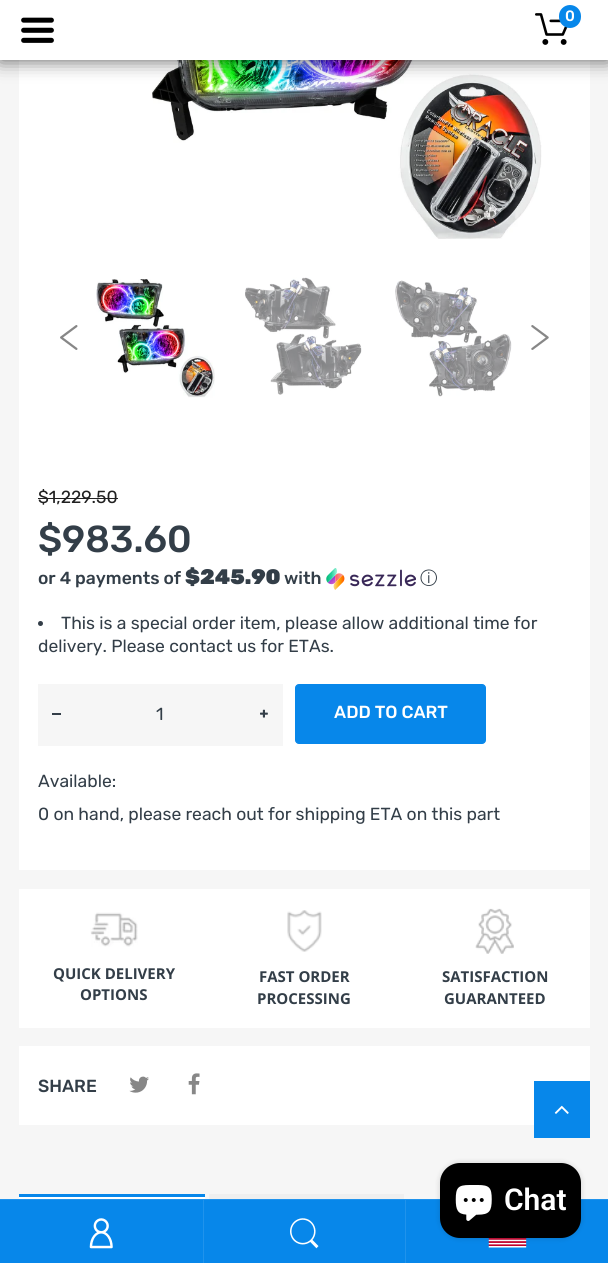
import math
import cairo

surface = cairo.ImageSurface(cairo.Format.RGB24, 608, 1263)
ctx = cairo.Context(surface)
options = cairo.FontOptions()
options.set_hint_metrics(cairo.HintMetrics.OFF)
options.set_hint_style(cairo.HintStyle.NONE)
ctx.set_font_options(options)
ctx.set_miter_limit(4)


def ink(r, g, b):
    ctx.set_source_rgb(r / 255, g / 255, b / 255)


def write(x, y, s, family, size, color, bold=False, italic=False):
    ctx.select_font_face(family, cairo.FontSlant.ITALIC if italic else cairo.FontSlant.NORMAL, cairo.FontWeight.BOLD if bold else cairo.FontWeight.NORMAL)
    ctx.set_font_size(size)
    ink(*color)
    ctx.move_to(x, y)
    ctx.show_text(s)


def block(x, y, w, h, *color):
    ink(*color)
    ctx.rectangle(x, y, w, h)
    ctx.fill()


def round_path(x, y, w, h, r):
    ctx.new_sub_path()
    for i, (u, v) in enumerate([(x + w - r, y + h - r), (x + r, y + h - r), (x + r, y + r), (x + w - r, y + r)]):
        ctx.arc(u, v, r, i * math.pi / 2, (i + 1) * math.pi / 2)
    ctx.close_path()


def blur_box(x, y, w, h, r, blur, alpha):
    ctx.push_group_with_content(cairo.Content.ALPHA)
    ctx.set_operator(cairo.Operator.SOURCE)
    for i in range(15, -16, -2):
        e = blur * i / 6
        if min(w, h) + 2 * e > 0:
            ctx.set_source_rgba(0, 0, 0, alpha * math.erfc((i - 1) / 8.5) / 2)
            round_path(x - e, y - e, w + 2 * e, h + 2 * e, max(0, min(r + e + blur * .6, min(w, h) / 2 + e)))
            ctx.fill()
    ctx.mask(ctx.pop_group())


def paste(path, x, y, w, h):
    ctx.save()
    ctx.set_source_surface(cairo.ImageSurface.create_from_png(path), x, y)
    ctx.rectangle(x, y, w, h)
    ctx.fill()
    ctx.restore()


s1 = dict(family="Rubik Medium", size=15, color=(255, 255, 255))
s2 = dict(family="Rubik", size=17.5, color=(33, 33, 33))
s3 = dict(family="Rubik Medium", size=37.5, color=(51, 62, 72))
s4 = dict(family="Rubik Medium", size=17.5, color=(51, 62, 72))
s5 = dict(family="Rubik Black", size=21, color=(51, 62, 72))
s6 = dict(family="WenQuanYi Zen Hei Medium", size=17.5, color=(51, 62, 72))
s7 = dict(family="Rubik", size=17.5, color=(51, 62, 72))
s8 = dict(family="Rubik Medium", size=17.5, color=(255, 255, 255))
s9 = dict(family="Open Sans", size=15, color=(51, 62, 72), bold=True)
s10 = dict(family="Roboto SemiBold", size=30, color=(255, 255, 255))

ink(246, 246, 246)
ctx.paint()
block(19, 60, 571, 810, 255, 255, 255)
paste("pic3.png", 152, 60, 390, 179)
ink(0, 0, 0)
blur_box(0, 0, 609, 60, 0, 9.5, 0.65)
block(0, 0, 608, 60, 255, 255, 255)
paste("pic1.png", 21, 17, 33, 26)
paste("pic2.png", 535, 13, 33, 32)
ink(7, 135, 234)
round_path(559, 5, 22, 23, 11)
ctx.fill()
write(565, 21, "0", **s1)
paste("pic4.png", 96, 279, 119, 119)
paste("pic5.png", 245, 277, 117, 118)
paste("pic6.png", 395, 280, 117, 117)
paste("pic7.png", 60, 325, 18, 25)
paste("pic8.png", 531, 325, 18, 25)
write(38, 503, "$1,229.50", **s2)
block(38, 498, 80, 1, 33, 33, 33)
write(38, 552, "$983.60", **s3)
write(38, 584, "or 4 payments of", **s4)
write(185, 584, "$245.90", **s5)
write(284, 584, "with", **s4)
paste("pic9.png", 326, 568, 90, 22)
write(420, 584, "ⓘ", **s6)
ctx.new_path()
ctx.arc(40.5, 623.5, 2.5, 0, 2 * math.pi)
ctx.fill()
write(61, 629, "This is a special order item, please allow additional time for", **s7)
write(38, 652, "delivery. Please contact us for ETAs.", **s7)
block(38, 684, 245, 62, 246, 246, 246)
write(156, 720, "1", **s7)
block(52, 713, 9, 2, 51, 62, 72)
paste("pic10.png", 260, 709, 8, 9)
ink(7, 135, 234)
round_path(295.5, 684.5, 190, 59, 3.5)
ctx.fill_preserve()
ctx.set_line_width(1)
ctx.stroke()
write(334, 718, "ADD TO CART", **s8)
write(38, 787, "Available:", **s7)
write(38, 820, "0 on hand, please reach out for shipping ETA on this part", **s7)
block(19, 889, 571, 139, 255, 255, 255)
paste("pic11.png", 90, 912, 48, 35)
write(53, 979, "QUICK DELIVERY", **s9)
write(80, 1000, "OPTIONS", **s9)
paste("pic12.png", 287, 910, 35, 42)
write(259, 982, "FAST ORDER", **s9)
write(257, 1004, "PROCESSING", **s9)
paste("pic13.png", 475, 908, 39, 46)
write(442, 982, "SATISFACTION", **s9)
write(444, 1004, "GUARANTEED", **s9)
block(19, 1046, 571, 79, 255, 255, 255)
write(38, 1092, "SHARE", **s4)
paste("pic14.png", 129, 1076, 20, 17)
paste("pic15.png", 188, 1073, 12, 22)
block(19, 1197, 186, 2, 255, 255, 255)
block(19, 1194, 186, 3, 7, 135, 234)
block(209, 1194, 195, 5, 239, 239, 239)
block(534, 1081, 56, 57, 7, 135, 234)
paste("pic16.png", 554, 1105, 15, 9)
block(0, 1200, 608, 63, 7, 135, 234)
block(0, 1199, 608, 1, 32, 147, 236)
block(203, 1200, 1, 63, 32, 147, 236)
paste("pic17.png", 89, 1218, 24, 31)
block(405, 1200, 1, 63, 32, 147, 236)
paste("pic18.png", 290, 1218, 29, 31)
paste("pic19.png", 488, 1238, 39, 10)
ink(0, 0, 0)
blur_box(440, 1163, 141, 75, 20, 3, 0.15)
ink(0, 0, 0)
round_path(440, 1163, 141, 75, 20)
ctx.fill()
paste("pic20.png", 455, 1185, 37, 36)
write(504, 1210, "Chat", **s10)
surface.write_to_png("screenshot.png")
